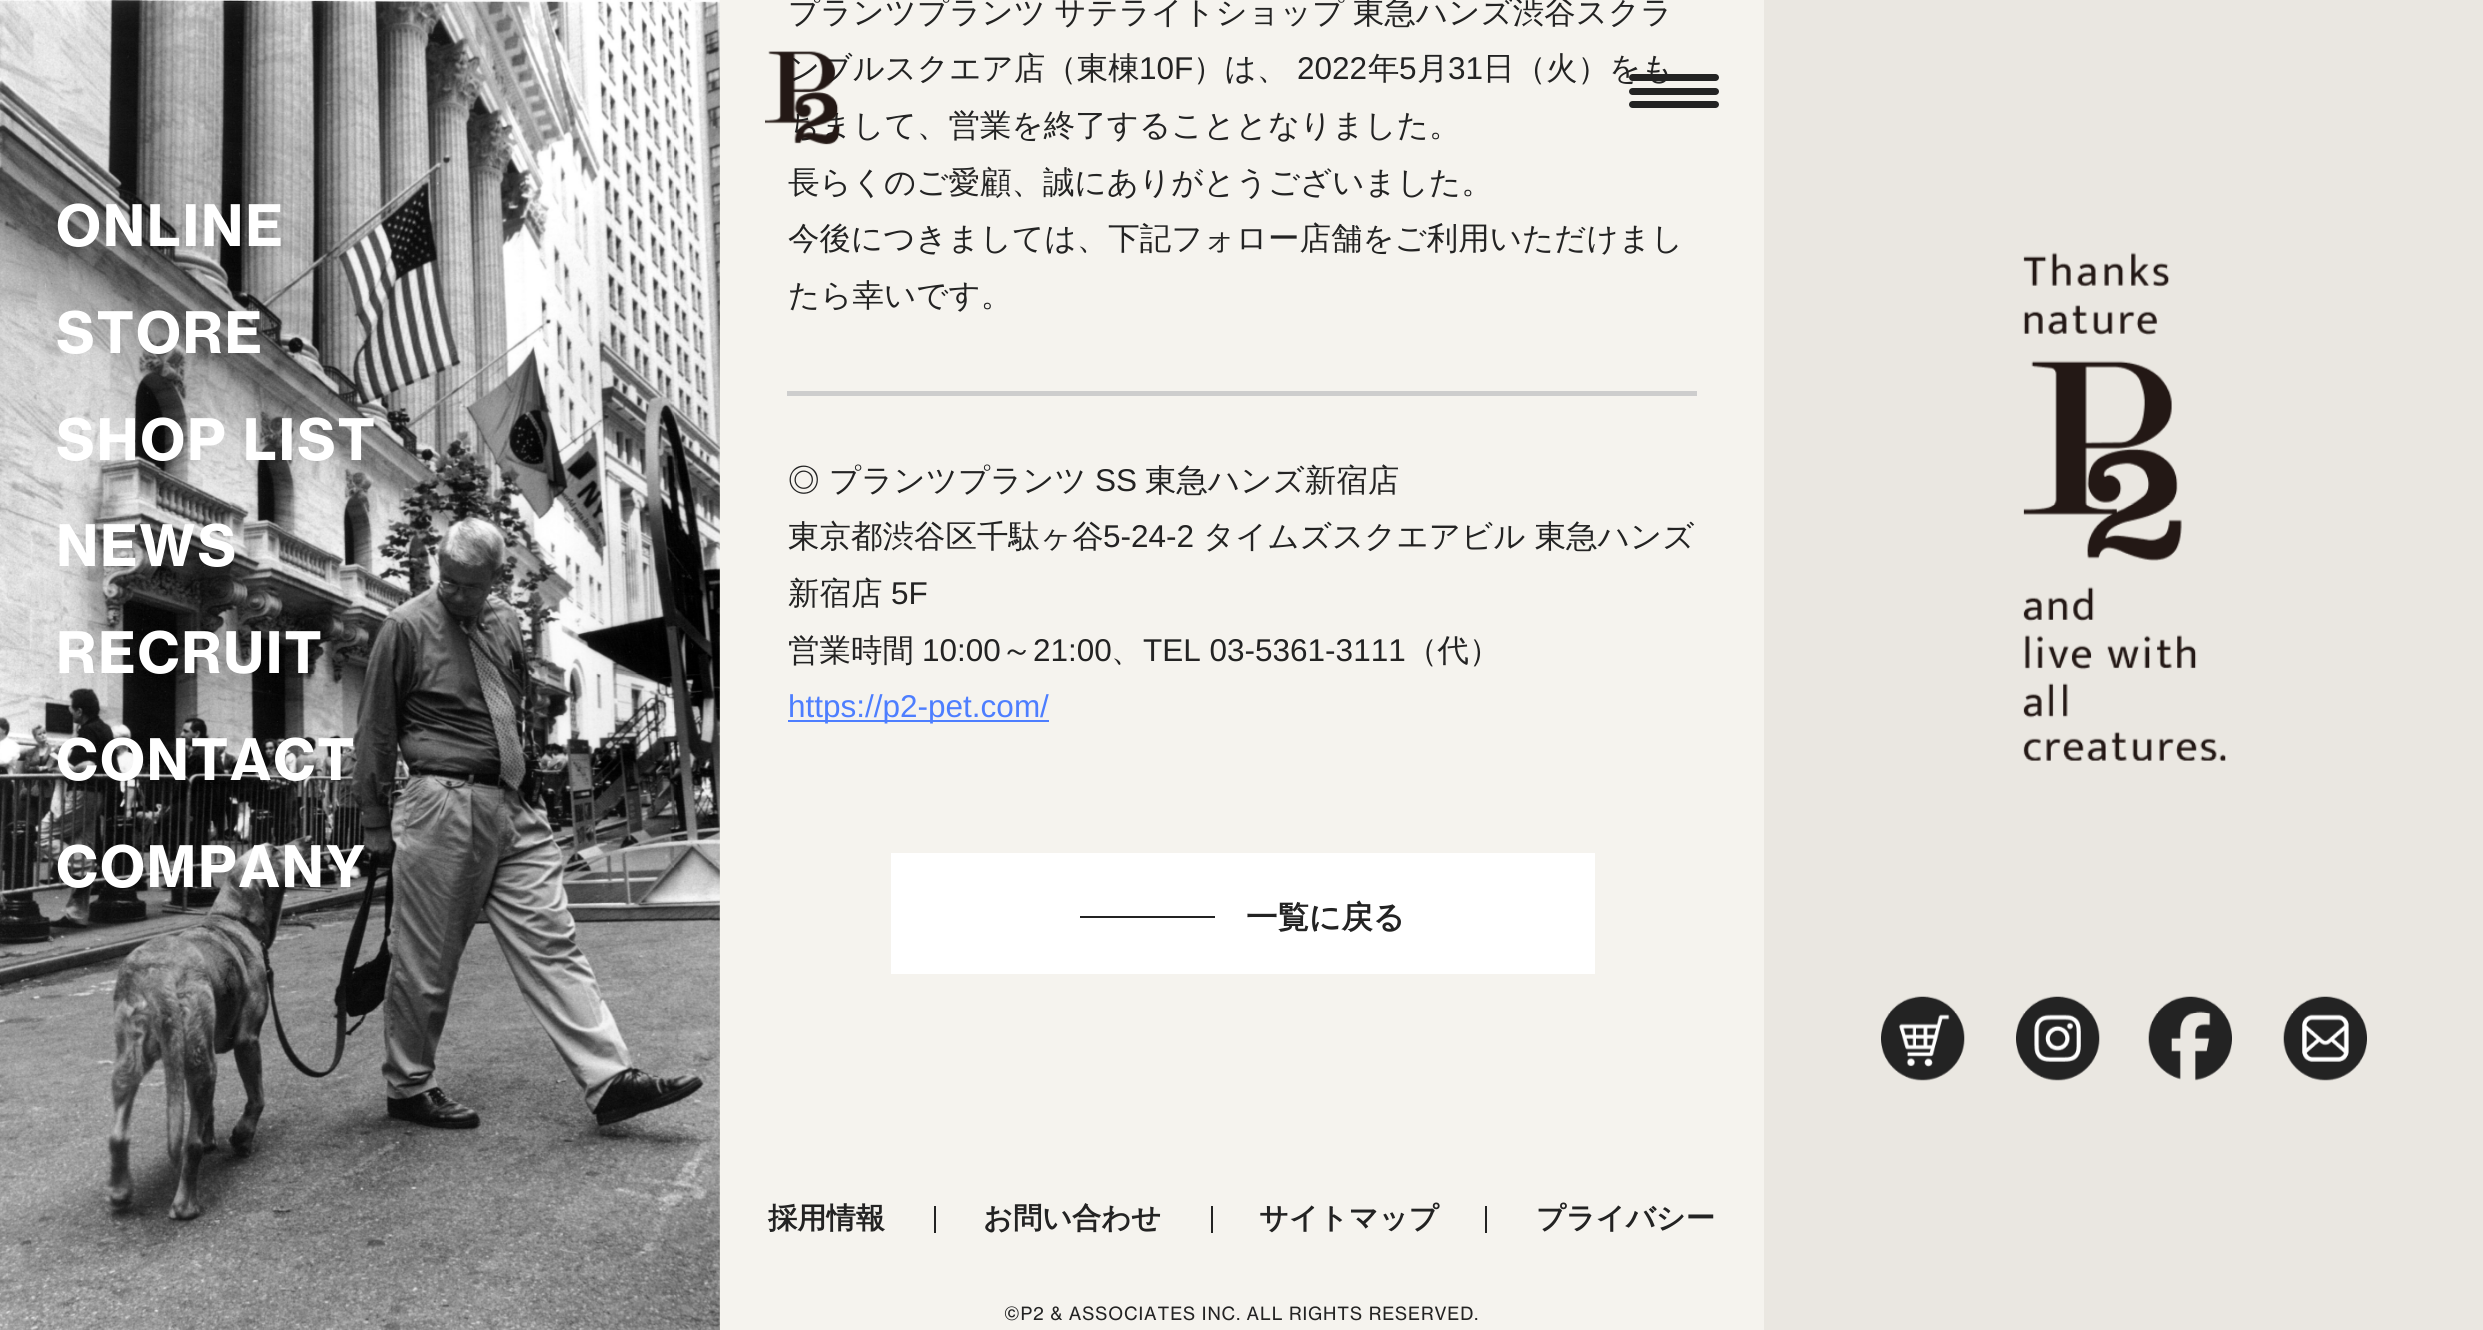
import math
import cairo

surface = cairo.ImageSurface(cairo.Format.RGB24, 2483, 1330)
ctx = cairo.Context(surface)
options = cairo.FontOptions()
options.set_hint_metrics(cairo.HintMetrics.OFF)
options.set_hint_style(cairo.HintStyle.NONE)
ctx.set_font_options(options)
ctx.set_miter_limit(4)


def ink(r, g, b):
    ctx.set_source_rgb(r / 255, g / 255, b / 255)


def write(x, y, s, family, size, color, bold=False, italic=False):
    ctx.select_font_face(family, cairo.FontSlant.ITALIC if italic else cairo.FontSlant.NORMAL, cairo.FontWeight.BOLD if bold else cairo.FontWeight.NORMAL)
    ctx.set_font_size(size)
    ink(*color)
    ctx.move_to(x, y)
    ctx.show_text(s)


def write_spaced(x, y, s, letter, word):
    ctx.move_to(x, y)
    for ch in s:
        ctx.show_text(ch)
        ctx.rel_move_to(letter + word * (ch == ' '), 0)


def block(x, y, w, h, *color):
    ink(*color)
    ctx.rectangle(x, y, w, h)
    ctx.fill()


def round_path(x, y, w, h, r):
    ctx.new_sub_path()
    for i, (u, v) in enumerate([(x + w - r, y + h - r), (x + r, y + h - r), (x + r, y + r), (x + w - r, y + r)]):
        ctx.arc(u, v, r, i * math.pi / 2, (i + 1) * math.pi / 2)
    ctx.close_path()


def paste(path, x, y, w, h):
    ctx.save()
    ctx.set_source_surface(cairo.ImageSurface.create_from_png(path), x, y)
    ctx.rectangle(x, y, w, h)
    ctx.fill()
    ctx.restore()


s1 = dict(family="WenQuanYi Zen Hei Medium", size=31.5, color=(35, 35, 35))
s2 = dict(family="Liberation Sans", size=31.5, color=(35, 35, 35))
s3 = dict(family="Liberation Sans", size=31.5, color=(77, 126, 255))
s4 = dict(family="WenQuanYi Zen Hei", size=31.5, color=(35, 35, 35), bold=True)
s5 = dict(family="WenQuanYi Zen Hei", size=29.25, color=(35, 35, 35), bold=True)

ink(234, 231, 225)
ctx.paint()
paste("pic1.png", 0, 0, 720, 1330)
ctx.select_font_face("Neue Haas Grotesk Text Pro", cairo.FontSlant.NORMAL, cairo.FontWeight.BOLD)
ctx.set_font_size(56.25)
ink(255, 255, 255)
write_spaced(56, 246, "ONLINE", 1.75, 0)
write_spaced(56, 353, "STORE", 1.75, 0)
write_spaced(56, 460, "SHOP LIST", 1.75, 0)
write_spaced(56, 566, "NEWS", 1.75, 0)
write_spaced(56, 673, "RECRUIT", 1.75, 0)
write_spaced(56, 780, "CONTACT", 1.75, 0)
write_spaced(56, 887, "COMPANY", 1.75, 0)
block(720, 0, 1044, 1330, 245, 243, 238)
ctx.select_font_face("WenQuanYi Zen Hei Medium")
ctx.set_font_size(31.5)
ink(35, 35, 35)
write_spaced(788, 23, "プランツプランツ サテライトショップ 東急ハンズ渋谷スクラ", 0, -1)
write(788, 79, "ンブルスクエア店（東棟", **s1)
write(1139, 79, "10F", **s2)
write(1193, 79, "）は、", **s1)
write(1297, 79, "2022", **s2)
write(1368, 79, "年", **s1)
write(1399, 79, "5", **s2)
write(1417, 79, "月", **s1)
write(1448, 79, "31", **s2)
write(1483, 79, "日（火）をも", **s1)
write(788, 136, "ちまして、営業を終了することとなりました。", **s1)
write(788, 193, "長らくのご愛顧、誠にありがとうございました。", **s1)
write(788, 249, "今後につきましては、下記フォロー店舗をご利用いただけまし", **s1)
write(788, 306, "たら幸いです。", **s1)
block(787, 391, 910, 5, 205, 205, 205)
write(788, 491, "◎ プランツプランツ", **s1)
write(1095, 491, "SS", **s2)
write(1145, 491, "東急ハンズ新宿店", **s1)
write(788, 547, "東京都渋谷区千駄ヶ谷", **s1)
write(1103, 547, "5-24-2", **s2)
write(1203, 547, "タイムズスクエアビル 東急ハンズ", **s1)
write(788, 604, "新宿店", **s1)
write(891, 604, "5F", **s2)
write(788, 661, "営業時間", **s1)
write(922, 661, "10:00", **s2)
write(1001, 661, "～", **s1)
write(1033, 661, "21:00", **s2)
write(1143, 661, "TEL 03-5361-3111", **s2)
write(1406, 661, "（代）", **s1)
write(1111, 661, "、", **s1)
block(788, 720, 261, 2, 77, 126, 255)
write(788, 717, "https://p2-pet.com/", **s3)
block(891, 853, 704, 121, 255, 255, 255)
block(1080, 916, 135, 2, 35, 35, 35)
write(1246, 928, "一覧に戻る", **s4)
paste("pic2.png", 765, 51, 75, 94)
round_path(1629, 74, 90, 7, 3.5)
ctx.fill()
round_path(1629, 88, 90, 7, 3.5)
ctx.fill()
round_path(1629, 101, 90, 7, 3.5)
ctx.fill()
write(768, 1228, "採用情報", **s5)
block(934, 1206, 2, 27, 35, 35, 35)
write(983, 1228, "お問い合わせ", **s5)
block(1211, 1206, 2, 27, 35, 35, 35)
write(1259, 1228, "サイトマップ", **s5)
block(1485, 1206, 2, 27, 35, 35, 35)
write(1536, 1228, "プライバシー", **s5)
ctx.select_font_face("Neue Haas Grotesk Text Pro")
ctx.set_font_size(18)
write_spaced(1004, 1320, "©P2 & ASSOCIATES INC. ALL RIGHTS RESERVED.", 0.9, 0)
paste("pic3.png", 2023, 252, 203, 509)
paste("pic4.png", 1881, 996, 84, 85)
paste("pic5.png", 2016, 996, 84, 85)
paste("pic6.png", 2148, 996, 84, 85)
paste("pic7.png", 2283, 996, 84, 85)
surface.write_to_png("screenshot.png")
